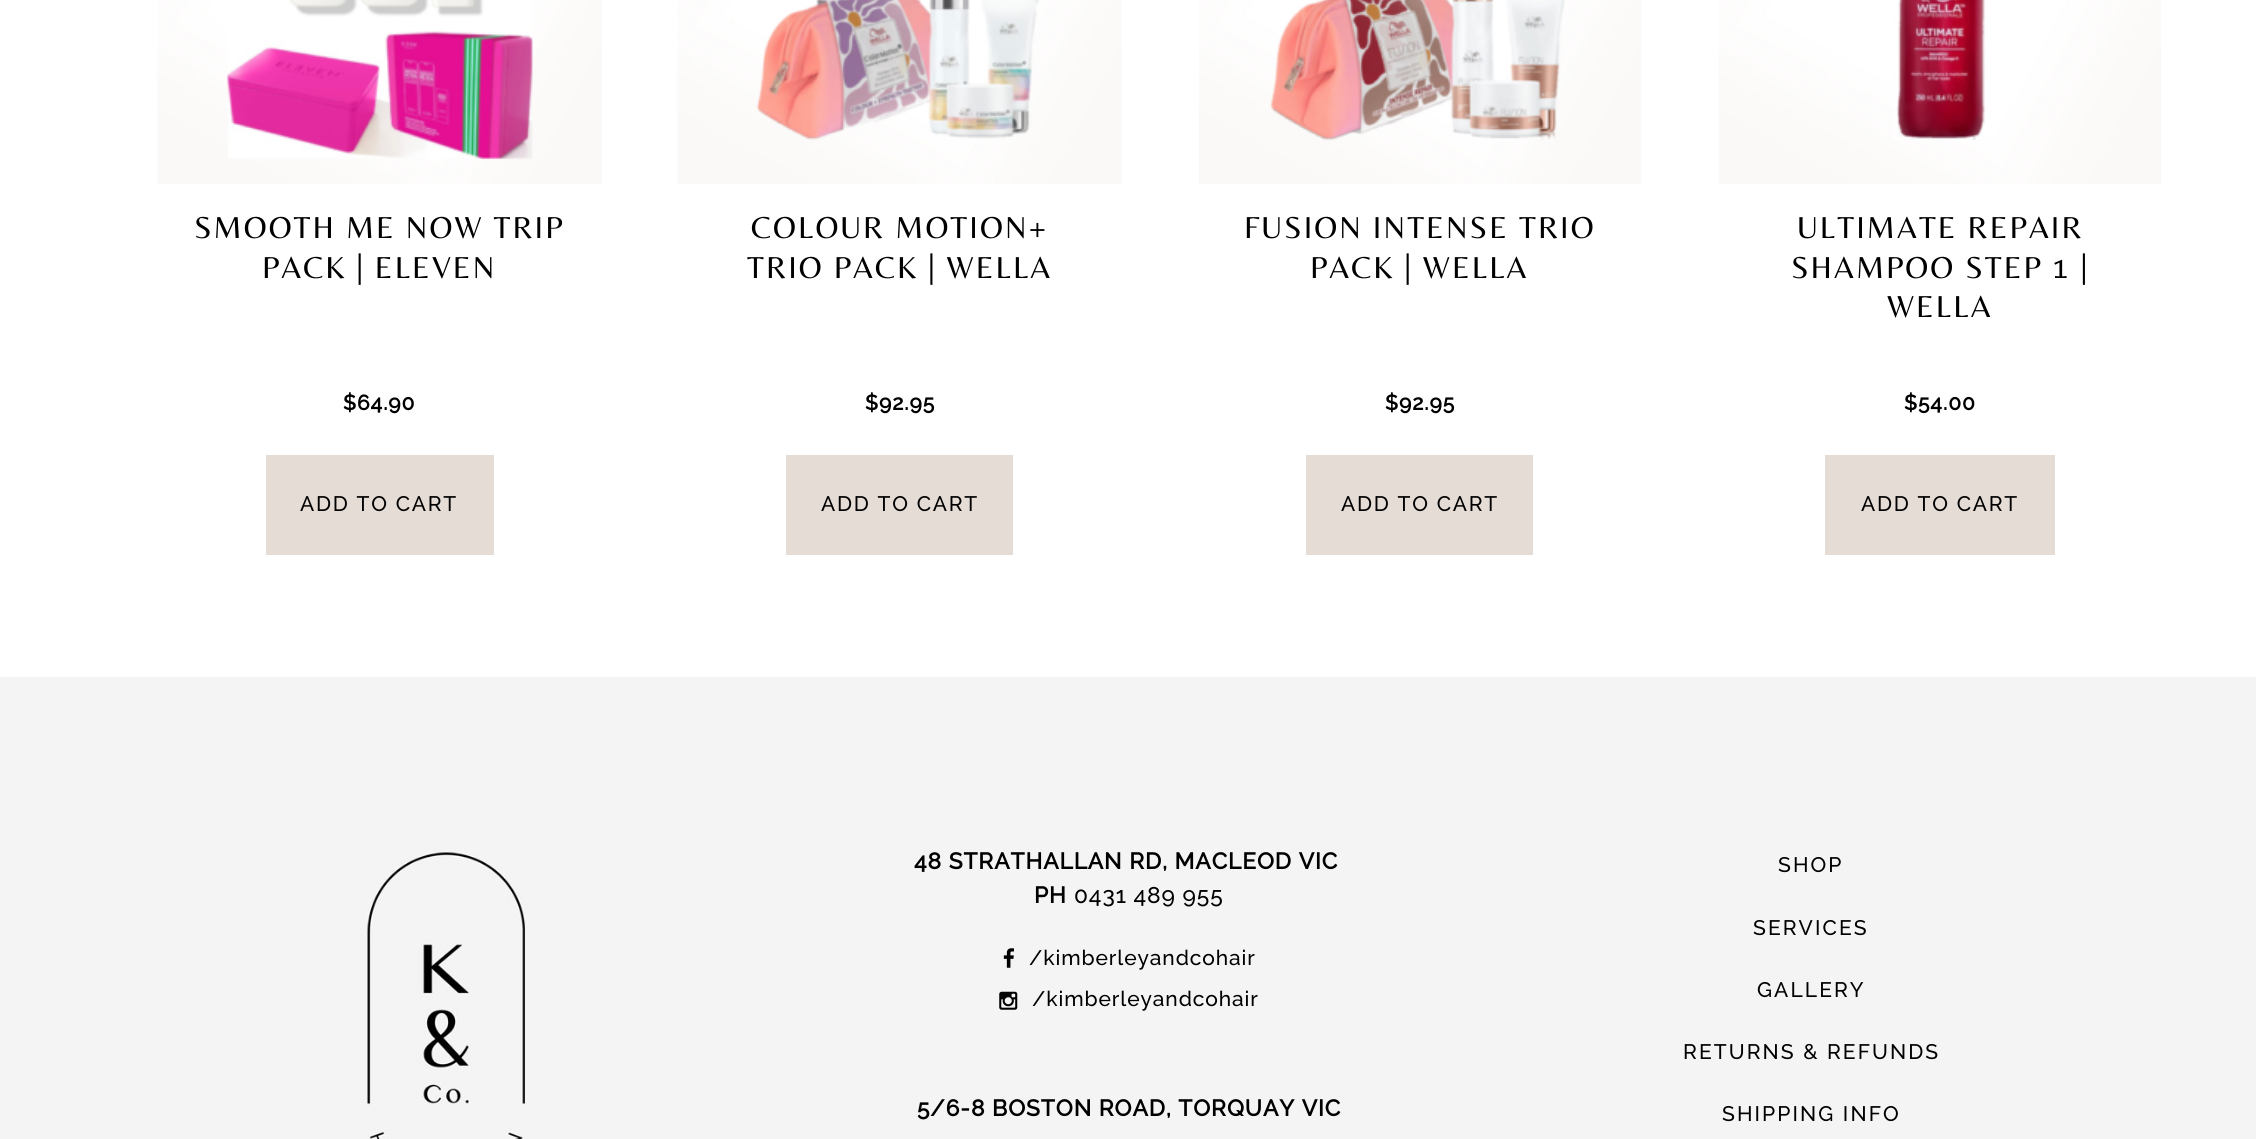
import math
import cairo

surface = cairo.ImageSurface(cairo.Format.RGB24, 2256, 1139)
ctx = cairo.Context(surface)
options = cairo.FontOptions()
options.set_hint_metrics(cairo.HintMetrics.OFF)
options.set_hint_style(cairo.HintStyle.NONE)
ctx.set_font_options(options)
ctx.set_miter_limit(4)


def ink(r, g, b):
    ctx.set_source_rgb(r / 255, g / 255, b / 255)


def write_spaced(x, y, s, letter, word):
    ctx.move_to(x, y)
    for ch in s:
        ctx.show_text(ch)
        ctx.rel_move_to(letter + word * (ch == ' '), 0)


def block(x, y, w, h, *color):
    ink(*color)
    ctx.rectangle(x, y, w, h)
    ctx.fill()


def paste(path, x, y, w, h):
    ctx.save()
    ctx.set_source_surface(cairo.ImageSurface.create_from_png(path), x, y)
    ctx.rectangle(x, y, w, h)
    ctx.fill()
    ctx.restore()


ink(255, 255, 255)
ctx.paint()
paste("pic1.png", 157, 0, 445, 184)
ctx.select_font_face("Belleza")
ctx.set_font_size(31.5)
ink(0, 0, 0)
write_spaced(194, 238, "SMOOTH ME NOW TRIP", 2.1, 0)
write_spaced(262, 278, "PACK | ELEVEN", 2.1, 0)
ctx.select_font_face("Raleway", cairo.FontSlant.NORMAL, cairo.FontWeight.BOLD)
ctx.set_font_size(21)
write_spaced(343, 410, "$64.90", 0.9, 0)
block(266, 455, 228, 100, 229, 220, 214)
ctx.select_font_face("Raleway Thin")
ink(0, 0, 0)
write_spaced(300, 511, "ADD TO CART", 1.75, 0)
paste("pic2.png", 677, 0, 445, 184)
ctx.select_font_face("Belleza")
ctx.set_font_size(31.5)
write_spaced(751, 238, "COLOUR MOTION+", 2.1, 0)
write_spaced(747, 278, "TRIO PACK | WELLA", 2.1, 0)
ctx.select_font_face("Raleway", cairo.FontSlant.NORMAL, cairo.FontWeight.BOLD)
ctx.set_font_size(21)
write_spaced(865, 410, "$92.95", 0.9, 0)
block(786, 455, 227, 100, 229, 220, 214)
ctx.select_font_face("Raleway Thin")
ink(0, 0, 0)
write_spaced(821, 511, "ADD TO CART", 1.75, 0)
paste("pic3.png", 1199, 0, 443, 184)
ctx.select_font_face("Belleza")
ctx.set_font_size(31.5)
write_spaced(1244, 238, "FUSION INTENSE TRIO", 2.1, 0)
write_spaced(1310, 278, "PACK | WELLA", 2.1, 0)
ctx.select_font_face("Raleway", cairo.FontSlant.NORMAL, cairo.FontWeight.BOLD)
ctx.set_font_size(21)
write_spaced(1385, 410, "$92.95", 0.9, 0)
block(1306, 455, 227, 100, 229, 220, 214)
ctx.select_font_face("Raleway Thin")
ink(0, 0, 0)
write_spaced(1341, 511, "ADD TO CART", 1.75, 0)
paste("pic4.png", 1718, 0, 443, 184)
ctx.select_font_face("Belleza")
ctx.set_font_size(31.5)
write_spaced(1797, 238, "ULTIMATE REPAIR", 2.1, 0)
write_spaced(1791, 278, "SHAMPOO STEP 1 |", 2.1, 0)
write_spaced(1887, 317, "WELLA", 2.1, 0)
ctx.select_font_face("Raleway", cairo.FontSlant.NORMAL, cairo.FontWeight.BOLD)
ctx.set_font_size(21)
write_spaced(1904, 410, "$54.00", 0.9, 0)
block(1825, 455, 230, 100, 229, 220, 214)
ctx.select_font_face("Raleway Thin")
ink(0, 0, 0)
write_spaced(1861, 511, "ADD TO CART", 1.75, 0)
block(0, 677, 2256, 462, 244, 244, 244)
paste("pic5.png", 367, 852, 158, 287)
ctx.select_font_face("Raleway", cairo.FontSlant.NORMAL, cairo.FontWeight.BOLD)
ctx.set_font_size(22.75)
ink(0, 0, 0)
write_spaced(914, 869, "48 STRATHALLAN RD, MACLEOD VIC", 0.9, 0)
write_spaced(1034, 903, "PH", 0.9, 0)
ctx.select_font_face("Raleway Thin")
write_spaced(1074, 903, "0431 489 955", 0.9, 0)
paste("pic6.png", 1003, 948, 11, 20)
ctx.set_font_size(21)
write_spaced(1029, 965, "/kimberleyandcohair", 0.9, 0)
paste("pic7.png", 999, 991, 19, 19)
write_spaced(1032, 1006, "/kimberleyandcohair", 0.9, 0)
ctx.select_font_face("Raleway", cairo.FontSlant.NORMAL, cairo.FontWeight.BOLD)
ctx.set_font_size(22.75)
write_spaced(917, 1116, "5/6-8 BOSTON ROAD, TORQUAY VIC", 0.9, 0)
ctx.select_font_face("Raleway Thin")
ctx.set_font_size(21)
write_spaced(1778, 872, "SHOP", 2.1, 0)
write_spaced(1753, 935, "SERVICES", 2.1, 0)
write_spaced(1757, 997, "GALLERY", 2.1, 0)
write_spaced(1683, 1059, "RETURNS & REFUNDS", 2.1, 0)
write_spaced(1722, 1121, "SHIPPING INFO", 2.1, 0)
surface.write_to_png("screenshot.png")
